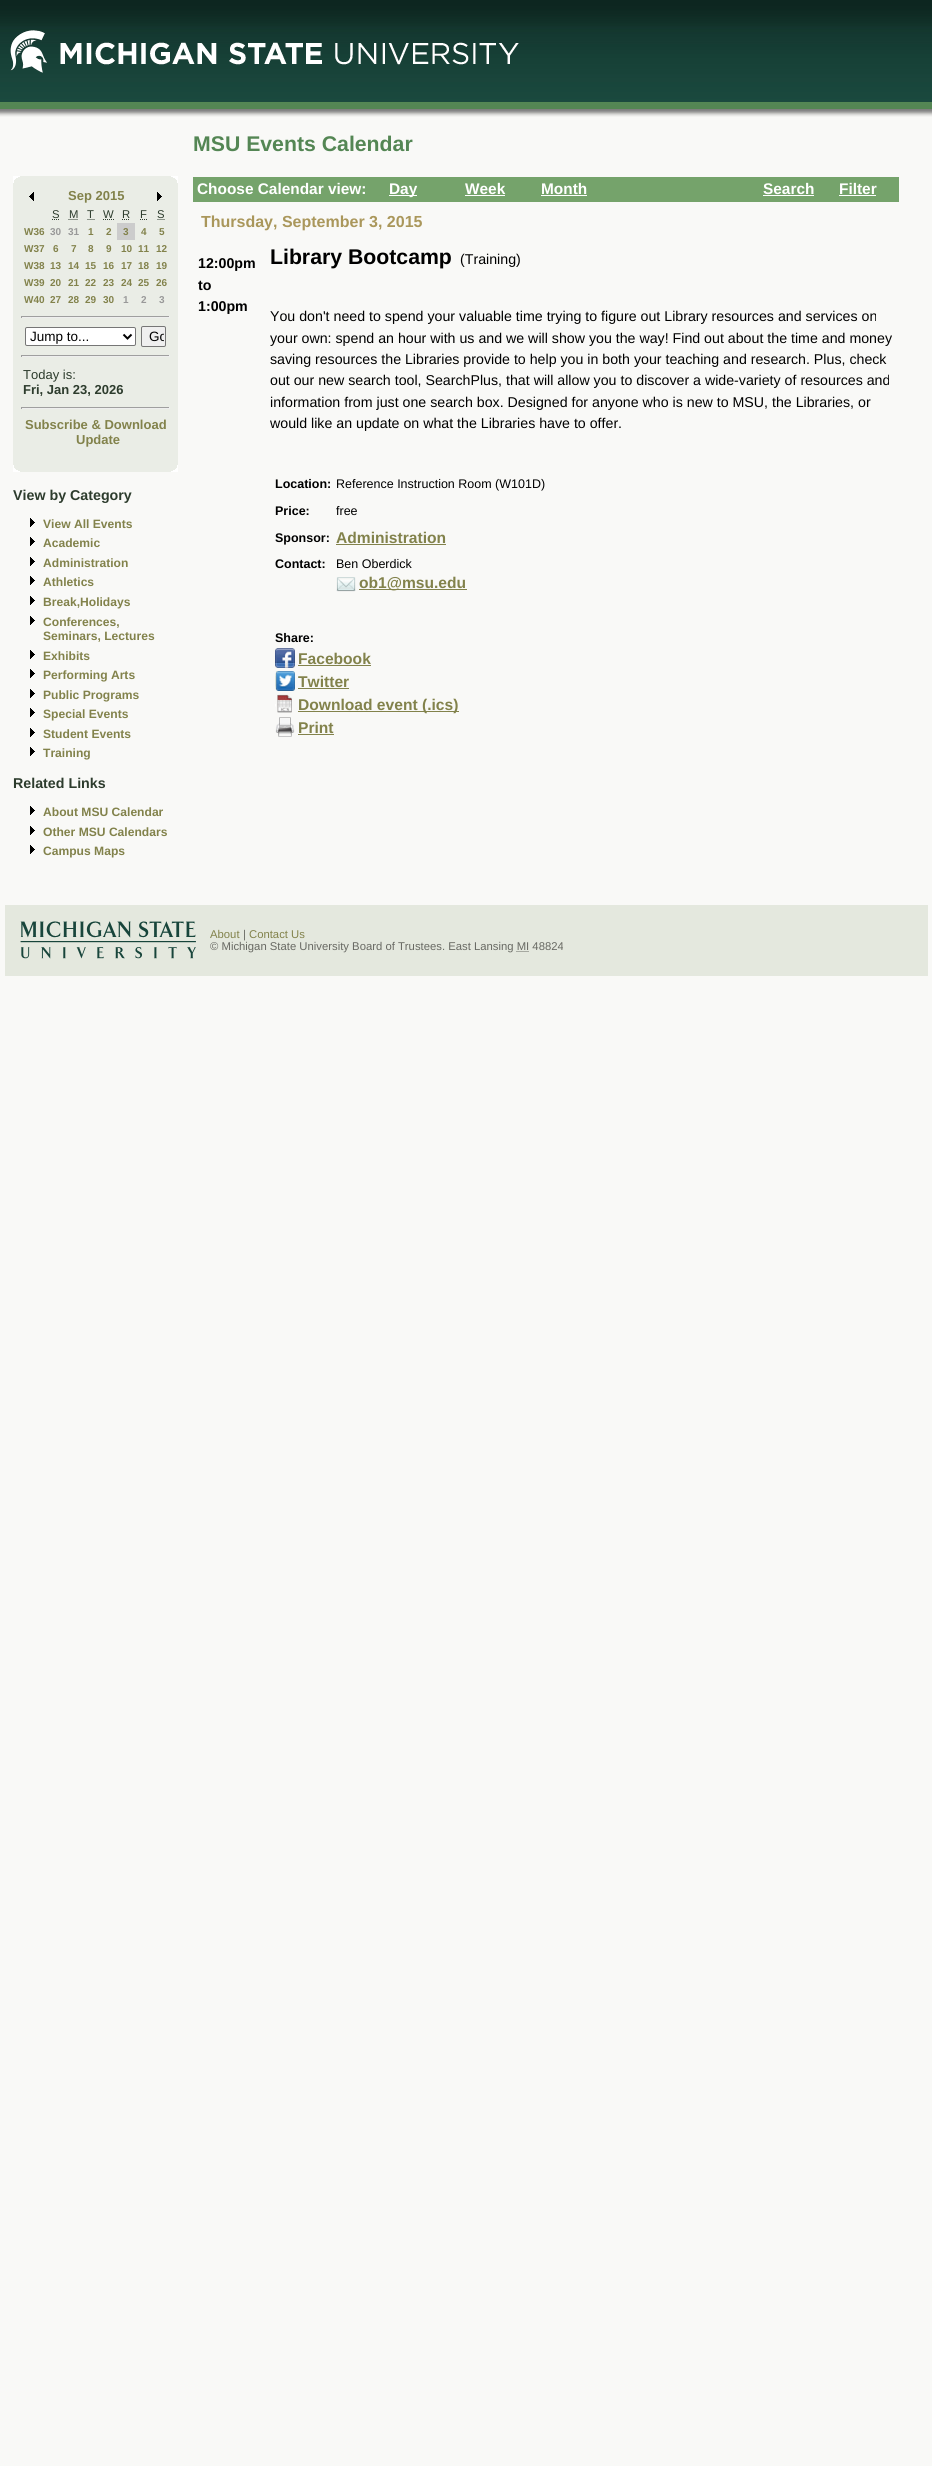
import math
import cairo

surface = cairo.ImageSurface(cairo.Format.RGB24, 932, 2466)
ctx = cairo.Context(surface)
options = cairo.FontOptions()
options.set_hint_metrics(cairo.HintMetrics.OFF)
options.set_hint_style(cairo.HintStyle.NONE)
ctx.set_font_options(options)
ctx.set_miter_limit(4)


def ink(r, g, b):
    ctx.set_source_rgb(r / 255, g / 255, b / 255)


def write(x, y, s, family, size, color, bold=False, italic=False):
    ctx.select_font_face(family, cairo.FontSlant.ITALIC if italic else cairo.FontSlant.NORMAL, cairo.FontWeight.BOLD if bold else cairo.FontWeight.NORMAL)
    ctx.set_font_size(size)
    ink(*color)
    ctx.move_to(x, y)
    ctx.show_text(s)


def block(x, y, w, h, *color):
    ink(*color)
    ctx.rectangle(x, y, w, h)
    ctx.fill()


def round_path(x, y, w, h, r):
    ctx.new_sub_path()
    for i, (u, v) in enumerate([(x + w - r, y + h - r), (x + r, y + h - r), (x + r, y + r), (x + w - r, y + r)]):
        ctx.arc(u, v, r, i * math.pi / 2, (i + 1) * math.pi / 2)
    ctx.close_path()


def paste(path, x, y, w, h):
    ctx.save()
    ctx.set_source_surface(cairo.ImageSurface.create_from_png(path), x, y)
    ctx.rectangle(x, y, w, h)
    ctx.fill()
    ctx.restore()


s1 = dict(family="Liberation Sans", size=13, color=(130, 130, 75), bold=True)
s2 = dict(family="Liberation Sans", size=11.3, color=(45, 60, 45))
s3 = dict(family="Liberation Sans", size=10, color=(130, 130, 75), bold=True)
s4 = dict(family="Liberation Sans", size=10, color=(153, 153, 153), bold=True)
s5 = dict(family="Liberation Sans", size=13.5, color=(0, 0, 0))
s6 = dict(family="Liberation Sans", size=13, color=(45, 60, 45))
s7 = dict(family="Liberation Sans", size=13, color=(45, 60, 45), bold=True)
s8 = dict(family="Liberation Sans", size=14.25, color=(45, 60, 45), bold=True)
s9 = dict(family="Liberation Sans", size=12.1, color=(130, 130, 75), bold=True)
s10 = dict(family="Liberation Sans", size=21.25, color=(84, 134, 84), bold=True)
s11 = dict(family="Liberation Sans", size=15.4, color=(255, 255, 255), bold=True)
s12 = dict(family="Liberation Sans", size=16, color=(170, 151, 91), bold=True)
s13 = dict(family="Liberation Sans", size=14.2, color=(0, 0, 0), bold=True)
s14 = dict(family="Liberation Sans", size=21.25, color=(0, 0, 0), bold=True)
s15 = dict(family="Liberation Sans", size=14.2, color=(0, 0, 0))
s16 = dict(family="Liberation Sans", size=12.5, color=(0, 0, 0), bold=True)
s17 = dict(family="Liberation Sans", size=12.5, color=(0, 0, 0))
s18 = dict(family="Liberation Sans", size=15.6, color=(130, 130, 75), bold=True)
s19 = dict(family="Liberation Sans", size=11.3, color=(130, 130, 75))
s20 = dict(family="Liberation Sans", size=11.3, color=(104, 105, 99))

ink(249, 249, 247)
ctx.paint()
paste("pic1.png", 0, 0, 932, 117)
paste("pic2.png", 10, 30, 509, 43)
block(13, 176, 8, 296, 234, 237, 230)
paste("pic3.png", 13, 176, 7, 7)
block(21, 176, 149, 296, 234, 237, 230)
block(170, 176, 8, 296, 234, 237, 230)
paste("pic4.png", 171, 176, 7, 7)
paste("pic5.png", 29, 192, 5, 9)
write(68, 200, "Sep 2015", **s1)
paste("pic6.png", 157, 192, 5, 9)
write(52, 218, "S", **s2)
ctx.new_path()
ctx.move_to(52, 219.5)
ctx.line_to(59.5, 219.5)
ctx.set_line_width(1)
ctx.set_dash([1, 1])
ctx.stroke()
write(69, 218, "M", **s2)
ctx.new_path()
ctx.move_to(68.5, 219.5)
ctx.line_to(78, 219.5)
ctx.stroke()
write(87, 218, "T", **s2)
ctx.new_path()
ctx.move_to(87.5, 219.5)
ctx.line_to(88.5, 219.5)
ctx.move_to(89.5, 219.5)
ctx.line_to(90.5, 219.5)
ctx.move_to(91.5, 219.5)
ctx.line_to(92.5, 219.5)
ctx.move_to(93.5, 219.5)
ctx.line_to(94.5, 219.5)
ctx.set_dash([])
ctx.stroke()
write(103, 218, "W", **s2)
ctx.new_path()
ctx.move_to(103, 219.5)
ctx.line_to(114, 219.5)
ctx.set_dash([1, 1])
ctx.stroke()
write(122, 218, "R", **s2)
ctx.new_path()
ctx.move_to(122, 219.5)
ctx.line_to(130, 219.5)
ctx.stroke()
write(140, 218, "F", **s2)
ctx.new_path()
ctx.move_to(140, 219.5)
ctx.line_to(141, 219.5)
ctx.move_to(142, 219.5)
ctx.line_to(143, 219.5)
ctx.move_to(144, 219.5)
ctx.line_to(145, 219.5)
ctx.move_to(146, 219.5)
ctx.line_to(147, 219.5)
ctx.set_dash([])
ctx.stroke()
write(157, 218, "S", **s2)
ctx.new_path()
ctx.move_to(157.5, 219.5)
ctx.line_to(165, 219.5)
ctx.set_dash([1, 1])
ctx.stroke()
write(24, 235, "W36", **s3)
write(50, 235, "30", **s4)
write(68, 235, "31", **s4)
write(88, 235, "1", **s3)
write(106, 235, "2", **s3)
block(117, 223, 18, 17, 204, 204, 204)
write(123, 235, "3", **s3)
write(141, 235, "4", **s3)
write(159, 235, "5", **s3)
write(24, 252, "W37", **s3)
write(53, 252, "6", **s3)
write(71, 252, "7", **s3)
write(88, 252, "8", **s3)
write(106, 252, "9", **s3)
write(121, 252, "10", **s3)
write(138, 252, "11", **s3)
write(156, 252, "12", **s3)
write(24, 269, "W38", **s3)
write(50, 269, "13", **s3)
write(68, 269, "14", **s3)
write(85, 269, "15", **s3)
write(103, 269, "16", **s3)
write(121, 269, "17", **s3)
write(138, 269, "18", **s3)
write(156, 269, "19", **s3)
write(24, 286, "W39", **s3)
write(50, 286, "20", **s3)
write(68, 286, "21", **s3)
write(85, 286, "22", **s3)
write(103, 286, "23", **s3)
write(121, 286, "24", **s3)
write(138, 286, "25", **s3)
write(156, 286, "26", **s3)
write(24, 303, "W40", **s3)
write(50, 303, "27", **s3)
write(68, 303, "28", **s3)
write(85, 303, "29", **s3)
write(103, 303, "30", **s3)
write(123, 303, "1", **s4)
write(141, 303, "2", **s4)
write(159, 303, "3", **s4)
block(21, 316, 149, 1, 159, 159, 159)
block(169, 316, 1, 2, 238, 238, 238)
block(21, 317, 149, 1, 238, 238, 238)
block(21, 316, 1, 2, 159, 159, 159)
ink(255, 255, 255)
round_path(25.5, 327.5, 110, 18, 1.5)
ctx.fill_preserve()
ink(118, 118, 118)
ctx.set_dash([])
ctx.stroke()
ctx.new_path()
ctx.move_to(123.5, 334.5)
ctx.line_to(127.5, 338.5)
ctx.line_to(131.5, 334.5)
ink(0, 0, 0)
ctx.set_line_width(2)
ctx.stroke()
write(30, 341, "Jump to...", **s5)
ink(239, 239, 239)
round_path(141.5, 326.5, 24, 20, 1.5)
ctx.fill_preserve()
ink(118, 118, 118)
ctx.set_line_width(1)
ctx.stroke()
ctx.save()
ctx.rectangle(143, 328, 21, 17)
ctx.clip()
write(149, 341, "Go", **s5)
ctx.restore()
block(21, 355, 149, 1, 159, 159, 159)
block(169, 355, 1, 2, 238, 238, 238)
block(21, 356, 149, 1, 238, 238, 238)
block(21, 355, 1, 2, 159, 159, 159)
write(23, 379, "Today is:", **s6)
write(23, 394, "Fri, Jan 23, 2026", **s7)
block(21, 407, 149, 1, 159, 159, 159)
block(169, 407, 1, 2, 238, 238, 238)
block(21, 408, 149, 1, 238, 238, 238)
block(21, 407, 1, 2, 159, 159, 159)
write(25, 429, "Subscribe & Download", **s1)
write(76, 444, "Update", **s1)
paste("pic7.png", 13, 465, 7, 7)
paste("pic8.png", 171, 465, 7, 7)
write(13, 500, "View by Category", **s8)
paste("pic9.png", 30, 518, 5, 9)
write(43, 528, "View All Events", **s9)
paste("pic9.png", 30, 537, 5, 9)
write(43, 547, "Academic", **s9)
paste("pic9.png", 30, 557, 5, 9)
write(43, 567, "Administration", **s9)
paste("pic9.png", 30, 576, 5, 9)
write(43, 586, "Athletics", **s9)
paste("pic9.png", 30, 596, 5, 9)
write(43, 606, "Break,Holidays", **s9)
paste("pic9.png", 30, 616, 5, 9)
write(43, 626, "Conferences,", **s9)
write(43, 640, "Seminars, Lectures", **s9)
paste("pic9.png", 30, 650, 5, 9)
write(43, 660, "Exhibits", **s9)
paste("pic9.png", 30, 669, 5, 9)
write(43, 679, "Performing Arts", **s9)
paste("pic9.png", 30, 689, 5, 9)
write(43, 699, "Public Programs", **s9)
paste("pic9.png", 30, 708, 5, 9)
write(43, 718, "Special Events", **s9)
paste("pic9.png", 30, 728, 5, 9)
write(43, 738, "Student Events", **s9)
paste("pic9.png", 30, 747, 5, 9)
write(43, 757, "Training", **s9)
write(13, 788, "Related Links", **s8)
paste("pic9.png", 30, 806, 5, 9)
write(43, 816, "About MSU Calendar", **s9)
paste("pic9.png", 30, 826, 5, 9)
write(43, 836, "Other MSU Calendars", **s9)
paste("pic9.png", 30, 845, 5, 9)
write(43, 855, "Campus Maps", **s9)
write(193, 151, "MSU Events Calendar", **s10)
block(193, 177, 706, 25, 117, 163, 107)
write(197, 194, "Choose Calendar view:", **s11)
block(389, 195, 28, 1, 255, 255, 255)
write(389, 194, "Day", **s11)
write(465, 194, "Week", **s11)
block(465, 195, 40, 1, 255, 255, 255)
write(541, 194, "Month", **s11)
block(541, 195, 46, 1, 255, 255, 255)
write(763, 194, "Search", **s11)
block(763, 195, 51, 1, 255, 255, 255)
write(839, 194, "Filter", **s11)
block(839, 195, 37, 1, 255, 255, 255)
write(201, 227, "Thursday, September 3, 2015", **s12)
write(198, 268, "12:00pm", **s13)
write(198, 290, "to", **s13)
write(198, 311, "1:00pm", **s13)
write(270, 264, "Library Bootcamp", **s14)
write(460, 264, "(Training)", **s15)
write(270, 321, "You don't need to spend your valuable time trying to figure out Library resources and services on", **s15)
write(270, 343, "your own: spend an hour with us and we will show you the way! Find out about the time and money", **s15)
write(270, 364, "saving resources the Libraries provide to help you in both your teaching and research. Plus, check", **s15)
write(270, 385, "out our new search tool, SearchPlus, that will allow you to discover a wide-variety of resources and", **s15)
write(270, 407, "information from just one search box. Designed for anyone who is new to MSU, the Libraries, or", **s15)
write(270, 428, "would like an update on what the Libraries have to offer.", **s15)
write(275, 488, "Location:", **s16)
write(336, 488, "Reference Instruction Room (W101D)", **s17)
write(275, 515, "Price:", **s16)
write(336, 515, "free", **s17)
write(275, 542, "Sponsor:", **s16)
write(336, 543, "Administration", **s18)
block(336, 544, 110, 1, 130, 130, 75)
write(275, 568, "Contact:", **s16)
write(336, 568, "Ben Oberdick", **s17)
paste("pic10.png", 336, 577, 20, 15)
block(359, 589, 108, 1, 130, 130, 75)
write(359, 588, "ob1@msu.edu", **s18)
write(275, 642, "Share:", **s16)
paste("pic11.png", 275, 648, 20, 20)
write(298, 664, "Facebook", **s18)
block(298, 665, 73, 1, 130, 130, 75)
paste("pic12.png", 275, 671, 20, 20)
write(298, 687, "Twitter", **s18)
block(298, 688, 51, 1, 130, 130, 75)
paste("pic13.png", 275, 694, 17, 19)
block(298, 711, 161, 1, 130, 130, 75)
write(298, 710, "Download event (.ics)", **s18)
paste("pic14.png", 275, 717, 20, 20)
write(298, 733, "Print", **s18)
block(298, 734, 36, 1, 130, 130, 75)
block(5, 905, 923, 71, 228, 232, 222)
paste("pic15.png", 20, 921, 176, 38)
write(210, 938, "About", **s19)
write(243, 938, "|", **s20)
write(249, 938, "Contact Us", **s19)
write(210, 950, "© Michigan State University Board of Trustees. East Lansing MI 48824", **s20)
ctx.new_path()
ctx.move_to(516.5, 951.5)
ctx.line_to(529, 951.5)
ctx.set_dash([1, 1])
ctx.stroke()
surface.write_to_png("screenshot.png")
